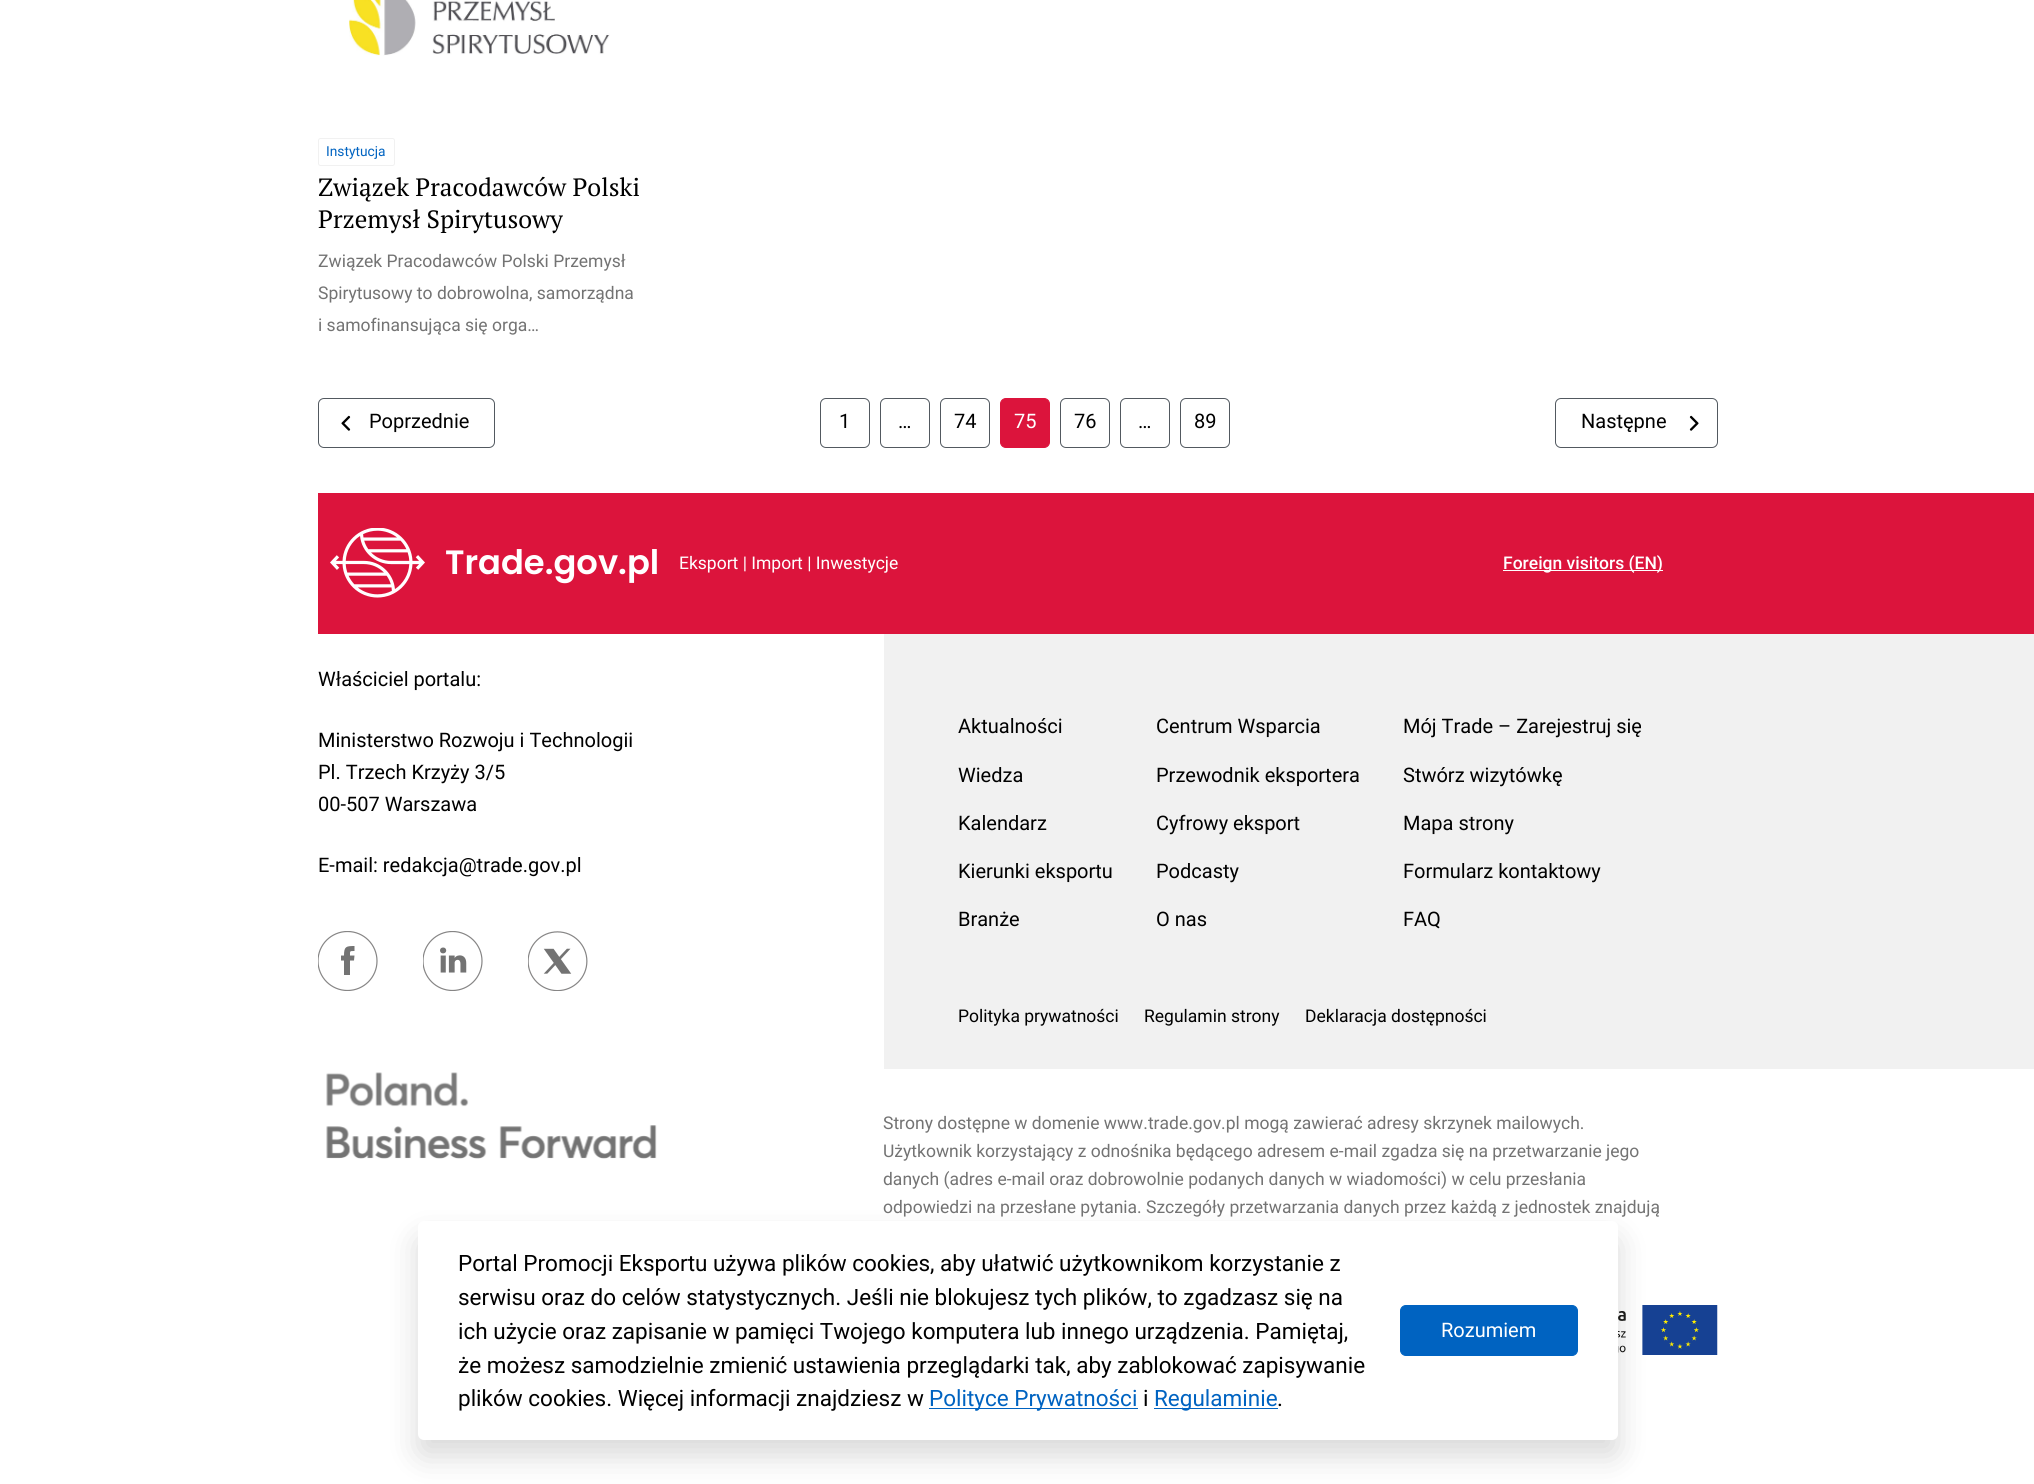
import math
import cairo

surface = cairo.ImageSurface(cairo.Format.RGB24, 2034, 1484)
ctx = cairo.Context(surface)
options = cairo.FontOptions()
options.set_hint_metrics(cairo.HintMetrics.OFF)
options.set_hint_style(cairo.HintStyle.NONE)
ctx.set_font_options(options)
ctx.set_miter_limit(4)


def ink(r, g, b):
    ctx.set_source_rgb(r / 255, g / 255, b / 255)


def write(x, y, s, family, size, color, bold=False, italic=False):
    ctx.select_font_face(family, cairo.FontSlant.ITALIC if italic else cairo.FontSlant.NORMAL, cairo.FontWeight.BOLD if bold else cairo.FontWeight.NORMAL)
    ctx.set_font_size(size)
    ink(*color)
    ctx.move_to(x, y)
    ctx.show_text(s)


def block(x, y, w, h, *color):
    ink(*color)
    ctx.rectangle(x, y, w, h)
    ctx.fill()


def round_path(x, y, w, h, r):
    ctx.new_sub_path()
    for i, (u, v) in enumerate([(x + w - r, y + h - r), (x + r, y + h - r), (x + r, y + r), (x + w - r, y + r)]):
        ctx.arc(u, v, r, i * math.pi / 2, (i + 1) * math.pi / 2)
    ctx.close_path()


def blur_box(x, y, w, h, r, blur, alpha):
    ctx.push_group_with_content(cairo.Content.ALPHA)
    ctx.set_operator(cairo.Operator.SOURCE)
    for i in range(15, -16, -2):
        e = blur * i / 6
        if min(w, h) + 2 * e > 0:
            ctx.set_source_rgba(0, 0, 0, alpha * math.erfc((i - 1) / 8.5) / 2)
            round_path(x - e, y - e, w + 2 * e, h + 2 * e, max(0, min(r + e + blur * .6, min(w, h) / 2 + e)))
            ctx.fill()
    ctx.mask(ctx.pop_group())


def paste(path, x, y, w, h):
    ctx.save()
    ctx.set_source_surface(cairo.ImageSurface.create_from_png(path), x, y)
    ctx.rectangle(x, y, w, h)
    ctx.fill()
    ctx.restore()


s1 = dict(family="Roboto", size=13.75, color=(0, 99, 193))
s2 = dict(family="PT Serif", size=25, color=(0, 0, 0))
s3 = dict(family="Roboto", size=17.5, color=(115, 115, 115))
s4 = dict(family="Roboto", size=20, color=(0, 0, 0))
s5 = dict(family="Roboto", size=20, color=(255, 255, 255))
s6 = dict(family="Poppins SemiBold", size=33.75, color=(255, 255, 255))
s7 = dict(family="Roboto", size=17.5, color=(255, 255, 255))
s8 = dict(family="Roboto Medium", size=17.5, color=(255, 255, 255))
s9 = dict(family="Roboto", size=17.5, color=(0, 0, 0))
s10 = dict(family="Roboto", size=22.5, color=(0, 0, 0))
s11 = dict(family="Roboto", size=22.5, color=(0, 99, 193))

ink(255, 255, 255)
ctx.paint()
paste("pic1.png", 349, 0, 261, 56)
round_path(318.5, 138.5, 76, 27, 2)
ink(241, 241, 241)
ctx.set_line_width(1)
ctx.stroke()
write(326, 156, "Instytucja", **s1)
write(318, 196, "Związek Pracodawców Polski", **s2)
write(318, 228, "Przemysł Spirytusowy", **s2)
write(318, 267, "Związek Pracodawców Polski Przemysł", **s3)
write(318, 299, "Spirytusowy to dobrowolna, samorządna", **s3)
write(318, 331, "i samofinansująca się orga…", **s3)
round_path(318.5, 398.5, 176, 49, 5.5)
ink(82, 89, 96)
ctx.stroke()
paste("pic2.png", 341, 415, 10, 16)
write(369, 428, "Poprzednie", **s4)
round_path(820.5, 398.5, 49, 49, 5.5)
ink(82, 89, 96)
ctx.stroke()
write(839, 428, "1", **s4)
round_path(880.5, 398.5, 49, 49, 5.5)
ink(82, 89, 96)
ctx.stroke()
write(898, 428, "…", **s4)
round_path(940.5, 398.5, 49, 49, 5.5)
ink(82, 89, 96)
ctx.stroke()
write(954, 428, "74", **s4)
ink(220, 20, 60)
round_path(1000.5, 398.5, 49, 49, 5.5)
ctx.fill_preserve()
ctx.stroke()
write(1014, 428, "75", **s5)
round_path(1060.5, 398.5, 49, 49, 5.5)
ink(82, 89, 96)
ctx.stroke()
write(1074, 428, "76", **s4)
round_path(1120.5, 398.5, 49, 49, 5.5)
ink(82, 89, 96)
ctx.stroke()
write(1138, 428, "…", **s4)
round_path(1180.5, 398.5, 49, 49, 5.5)
ink(82, 89, 96)
ctx.stroke()
write(1194, 428, "89", **s4)
round_path(1555.5, 398.5, 162, 49, 5.5)
ink(82, 89, 96)
ctx.stroke()
write(1581, 428, "Następne", **s4)
paste("pic3.png", 1689, 415, 10, 16)
block(318, 493, 1716, 141, 220, 20, 60)
paste("pic4.png", 330, 528, 95, 70)
write(445, 574, "Trade.gov.pl", **s6)
write(679, 569, "Eksport | Import | Inwestycje", **s7)
block(1503, 570, 160, 1, 255, 255, 255)
write(1503, 569, "Foreign visitors (EN)", **s8)
write(318, 686, "Właściciel portalu:", **s4)
write(318, 747, "Ministerstwo Rozwoju i Technologii", **s4)
write(318, 779, "Pl. Trzech Krzyży 3/5", **s4)
write(318, 811, "00-507 Warszawa", **s4)
write(318, 872, "E-mail: redakcja@trade.gov.pl", **s4)
ctx.save()
ctx.rectangle(318, 931, 60, 60)
ctx.clip()
ctx.arc(347.5, 961, 29.5, 0, 2 * math.pi)
ink(134, 133, 133)
ctx.set_line_width(1.2)
ctx.stroke()
ctx.restore()
ink(115, 115, 115)
ctx.set_fill_rule(cairo.FillRule.EVEN_ODD)
ctx.new_path()
ctx.move_to(350, 955.5)
ctx.curve_to(350, 951, 349.5, 951, 354.5, 951)
ctx.line_to(354.5, 946)
ctx.curve_to(346, 946, 344, 946.5, 344, 955.5)
ctx.line_to(341, 955.5)
ctx.line_to(341, 960.5)
ctx.line_to(344, 960.5)
ctx.line_to(344, 975)
ctx.line_to(350, 975)
ctx.line_to(350, 960.5)
ctx.line_to(354, 960.5)
ctx.line_to(354.5, 955.5)
ctx.close_path()
ctx.fill()
paste("pic5.png", 423, 931, 60, 60)
paste("pic6.png", 528, 931, 60, 60)
block(884, 634, 1150, 435, 241, 241, 241)
write(958, 733, "Aktualności", **s4)
write(958, 782, "Wiedza", **s4)
write(958, 830, "Kalendarz", **s4)
write(958, 878, "Kierunki eksportu", **s4)
write(958, 926, "Branże", **s4)
write(1156, 733, "Centrum Wsparcia", **s4)
write(1156, 782, "Przewodnik eksportera", **s4)
write(1156, 830, "Cyfrowy eksport", **s4)
write(1156, 878, "Podcasty", **s4)
write(1156, 926, "O nas", **s4)
write(1403, 733, "Mój Trade – Zarejestruj się", **s4)
write(1403, 782, "Stwórz wizytówkę", **s4)
write(1403, 830, "Mapa strony", **s4)
write(1403, 878, "Formularz kontaktowy", **s4)
write(1403, 926, "FAQ", **s4)
write(958, 1022, "Polityka prywatności", **s9)
write(1144, 1022, "Regulamin strony", **s9)
write(1305, 1022, "Deklaracja dostępności", **s9)
paste("pic7.png", 326, 1072, 331, 87)
write(883, 1129, "Strony dostępne w domenie www.trade.gov.pl mogą zawierać adresy skrzynek mailowych.", **s3)
write(883, 1157, "Użytkownik korzystający z odnośnika będącego adresem e-mail zgadza się na przetwarzanie jego", **s3)
write(883, 1185, "danych (adres e-mail oraz dobrowolnie podanych danych w wiadomości) w celu przesłania", **s3)
write(883, 1213, "odpowiedzi na przesłane pytania. Szczegóły przetwarzania danych przez każdą z jednostek znajdują", **s3)
paste("pic8.png", 1618, 1305, 100, 50)
ink(0, 0, 0)
blur_box(418, 1238, 1200, 218, 6, 15.5, 0.15)
ink(255, 255, 255)
round_path(418, 1221, 1200, 219, 6)
ctx.fill()
write(458, 1271, "Portal Promocji Eksportu używa plików cookies, aby ułatwić użytkownikom korzystanie z", **s10)
write(458, 1305, "serwisu oraz do celów statystycznych. Jeśli nie blokujesz tych plików, to zgadzasz się na", **s10)
write(458, 1339, "ich użycie oraz zapisanie w pamięci Twojego komputera lub innego urządzenia. Pamiętaj,", **s10)
write(458, 1373, "że możesz samodzielnie zmienić ustawienia przeglądarki tak, aby zablokować zapisywanie", **s10)
write(458, 1406, "plików cookies. Więcej informacji znajdziesz w", **s10)
block(929, 1408, 209, 1, 0, 99, 193)
write(929, 1406, "Polityce Prywatności", **s11)
write(1143, 1406, "i", **s10)
block(1154, 1408, 124, 1, 0, 99, 193)
write(1154, 1406, "Regulaminie", **s11)
write(1277, 1406, ".", **s10)
ink(0, 99, 193)
round_path(1400.5, 1305.5, 177, 50, 5.5)
ctx.fill_preserve()
ctx.stroke()
write(1441, 1337, "Rozumiem", **s5)
surface.write_to_png("screenshot.png")
